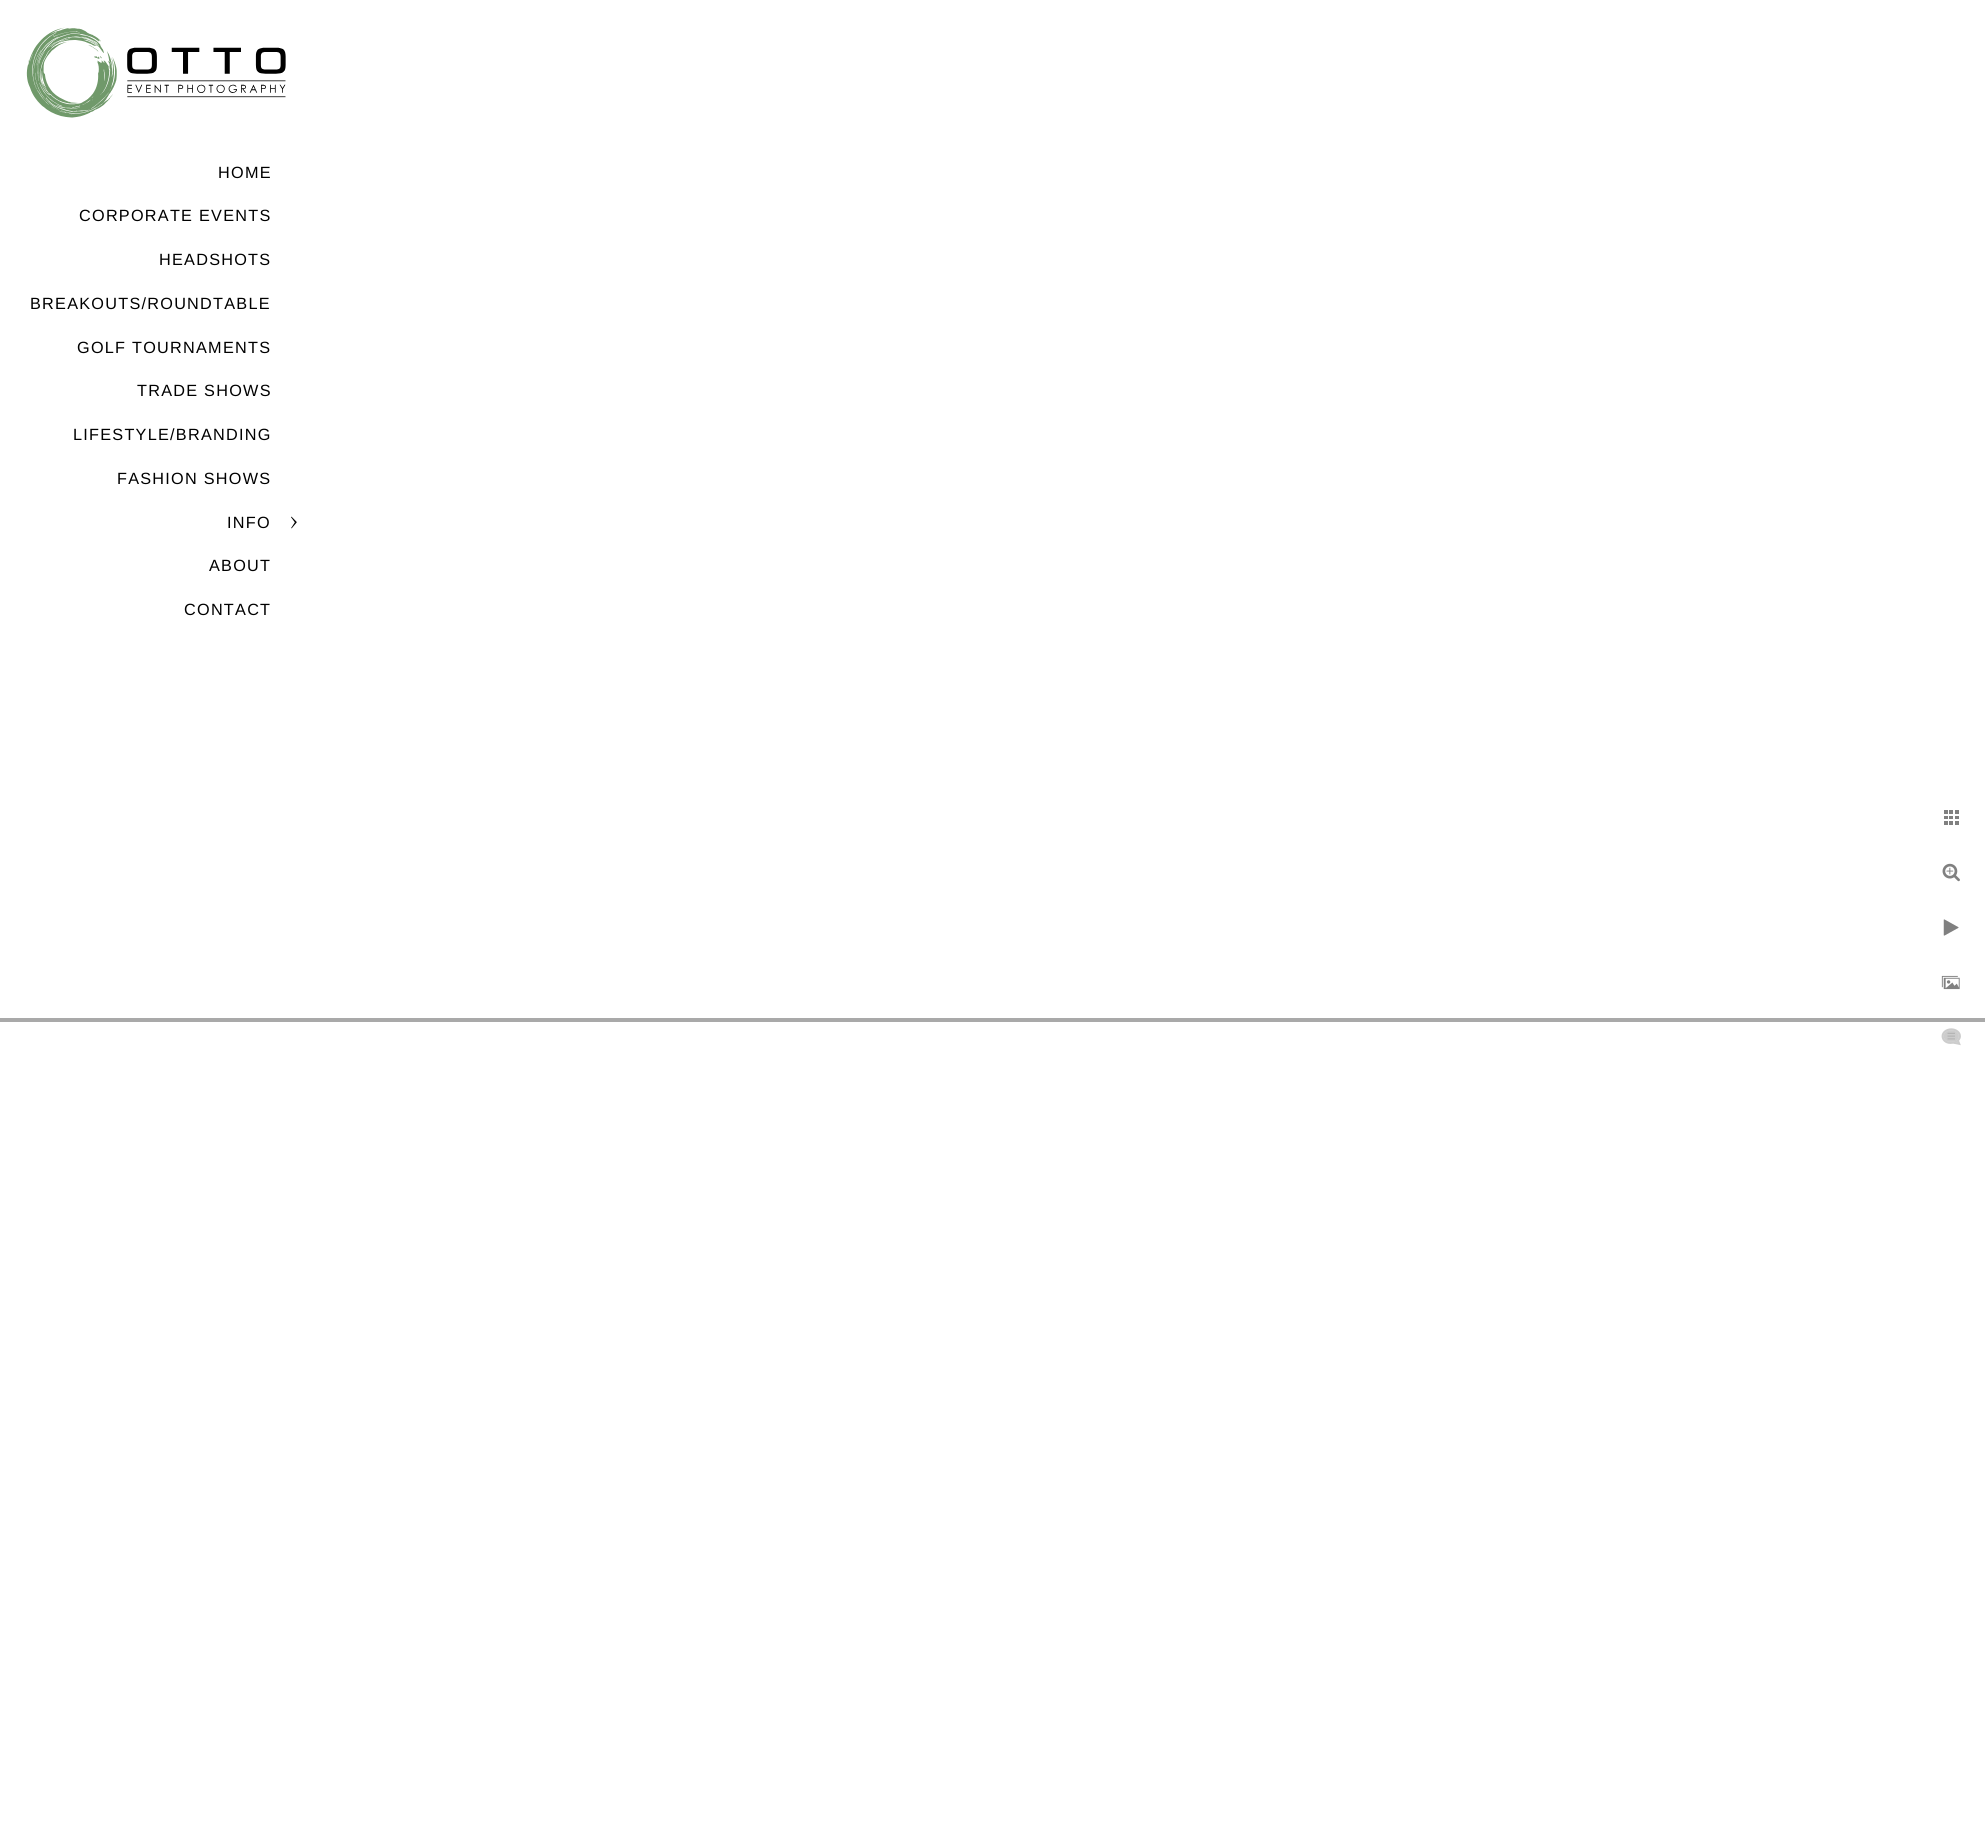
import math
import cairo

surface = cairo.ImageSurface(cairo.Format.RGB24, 1985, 1830)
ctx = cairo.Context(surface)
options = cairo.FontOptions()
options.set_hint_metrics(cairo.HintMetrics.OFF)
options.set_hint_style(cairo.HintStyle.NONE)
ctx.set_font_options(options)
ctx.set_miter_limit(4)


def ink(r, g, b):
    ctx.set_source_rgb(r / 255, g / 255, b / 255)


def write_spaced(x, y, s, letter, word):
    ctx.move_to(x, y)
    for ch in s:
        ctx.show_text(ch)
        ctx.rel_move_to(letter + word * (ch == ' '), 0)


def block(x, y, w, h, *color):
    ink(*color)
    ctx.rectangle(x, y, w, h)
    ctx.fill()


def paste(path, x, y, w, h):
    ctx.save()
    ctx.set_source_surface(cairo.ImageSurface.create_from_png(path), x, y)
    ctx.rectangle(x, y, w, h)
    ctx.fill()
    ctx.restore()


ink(255, 255, 255)
ctx.paint()
paste("pic1.png", 26, 27, 260, 91)
ctx.select_font_face("Liberation Sans")
ctx.set_font_size(16.25)
ink(0, 0, 0)
write_spaced(218, 178, "HOME", 1.25, 0)
write_spaced(79, 221, "CORPORATE EVENTS", 1.25, 0)
write_spaced(159, 265, "HEADSHOTS", 1.25, 0)
write_spaced(30, 309, "BREAKOUTS/ROUNDTABLE", 1.25, 0)
write_spaced(77, 353, "GOLF TOURNAMENTS", 1.25, 0)
write_spaced(137, 396, "TRADE SHOWS", 1.25, 0)
write_spaced(73, 440, "LIFESTYLE/BRANDING", 1.25, 0)
write_spaced(117, 484, "FASHION SHOWS", 1.25, 0)
write_spaced(227, 528, "INFO", 1.25, 0)
paste("pic2.png", 291, 516, 6, 13)
write_spaced(209, 571, "ABOUT", 1.25, 0)
write_spaced(184, 615, "CONTACT", 1.25, 0)
paste("pic3.png", 1944, 810, 15, 15)
paste("pic4.png", 1942, 863, 18, 19)
paste("pic5.png", 1943, 919, 16, 17)
paste("pic6.png", 1941, 975, 19, 15)
paste("pic7.png", 1941, 1028, 20, 18)
block(0, 1018, 1985, 4, 169, 169, 169)
surface.write_to_png("screenshot.png")
